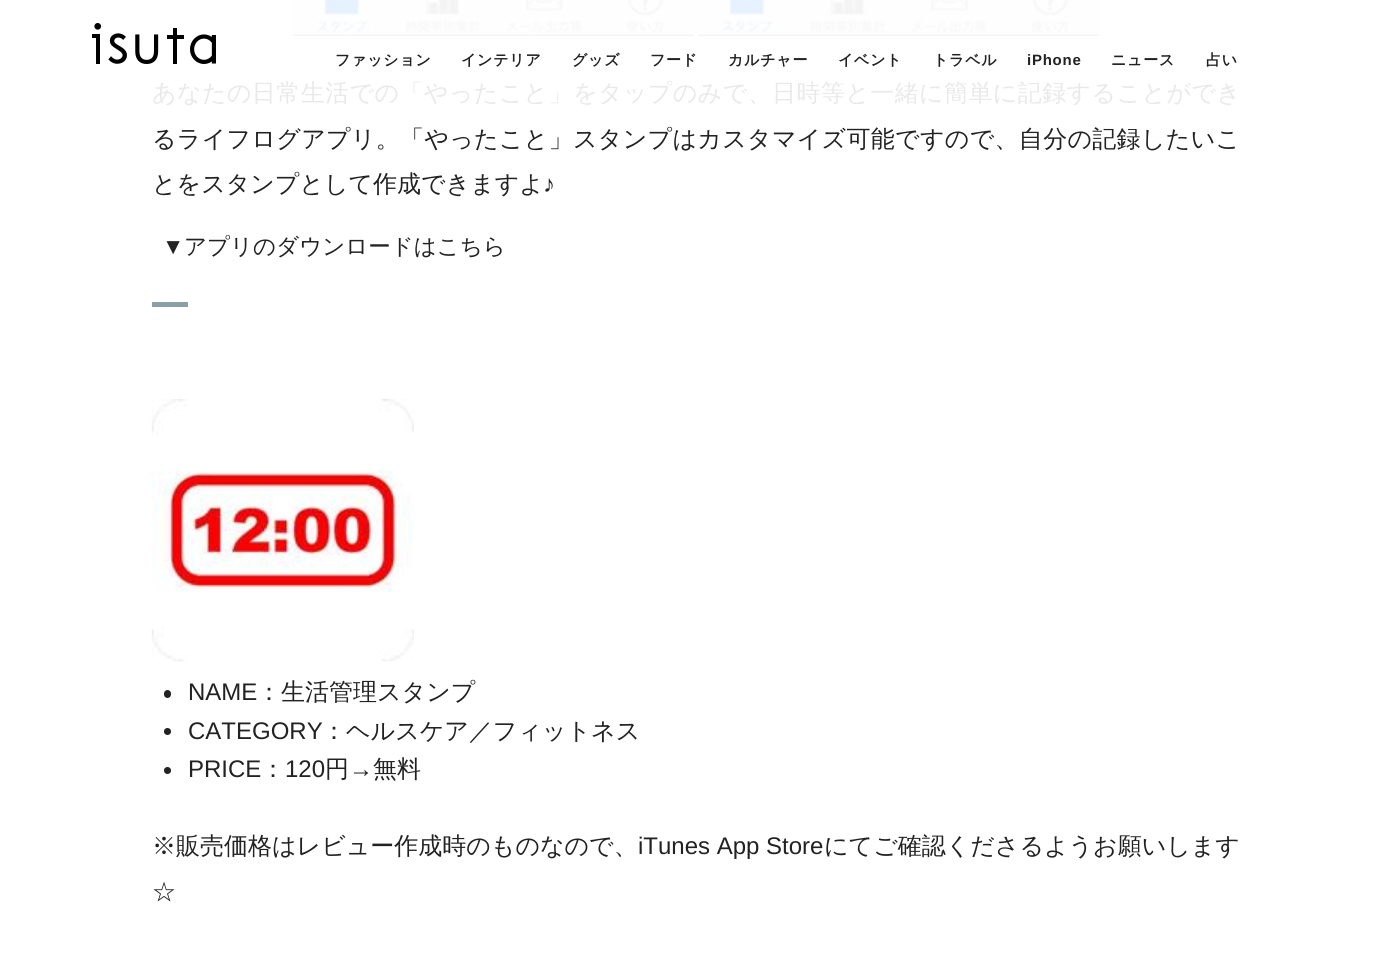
import math
import cairo

surface = cairo.ImageSurface(cairo.Format.RGB24, 1392, 956)
ctx = cairo.Context(surface)
options = cairo.FontOptions()
options.set_hint_metrics(cairo.HintMetrics.OFF)
options.set_hint_style(cairo.HintStyle.NONE)
ctx.set_font_options(options)
ctx.set_miter_limit(4)


def ink(r, g, b):
    ctx.set_source_rgb(r / 255, g / 255, b / 255)


def write(x, y, s, family, size, color, bold=False, italic=False):
    ctx.select_font_face(family, cairo.FontSlant.ITALIC if italic else cairo.FontSlant.NORMAL, cairo.FontWeight.BOLD if bold else cairo.FontWeight.NORMAL)
    ctx.set_font_size(size)
    ink(*color)
    ctx.move_to(x, y)
    ctx.show_text(s)


def write_spaced(x, y, s, letter, word):
    ctx.move_to(x, y)
    for ch in s:
        ctx.show_text(ch)
        ctx.rel_move_to(letter + word * (ch == ' '), 0)


def block(x, y, w, h, *color):
    ink(*color)
    ctx.rectangle(x, y, w, h)
    ctx.fill()


def round_path(x, y, w, h, r):
    ctx.new_sub_path()
    for i, (u, v) in enumerate([(x + w - r, y + h - r), (x + r, y + h - r), (x + r, y + r), (x + w - r, y + r)]):
        ctx.arc(u, v, r, i * math.pi / 2, (i + 1) * math.pi / 2)
    ctx.close_path()


def paste(path, x, y, w, h):
    ctx.save()
    ctx.set_source_surface(cairo.ImageSurface.create_from_png(path), x, y)
    ctx.rectangle(x, y, w, h)
    ctx.fill()
    ctx.restore()


s1 = dict(family="WenQuanYi Zen Hei Medium", size=24, color=(34, 34, 34))
s2 = dict(family="Liberation Sans", size=24, color=(34, 34, 34))
s3 = dict(family="Liberation Sans", size=22.5, color=(34, 34, 34))
s4 = dict(family="WenQuanYi Zen Hei Medium", size=22.5, color=(34, 34, 34))

ink(255, 255, 255)
ctx.paint()
paste("pic1.png", 92, 23, 124, 41)
ctx.select_font_face("WenQuanYi Zen Hei", cairo.FontSlant.NORMAL, cairo.FontWeight.BOLD)
ctx.set_font_size(15)
ink(34, 34, 34)
write_spaced(335, 65, "ファッション", 0.75, 0)
write_spaced(461, 65, "インテリア", 0.75, 0)
write_spaced(572, 65, "グッズ", 0.75, 0)
write_spaced(650, 65, "フード", 0.75, 0)
write_spaced(728, 65, "カルチャー", 0.75, 0)
write_spaced(838, 65, "イベント", 0.75, 0)
write_spaced(933, 65, "トラベル", 0.75, 0)
ctx.select_font_face("Liberation Sans", cairo.FontSlant.NORMAL, cairo.FontWeight.BOLD)
write_spaced(1027, 65, "iPhone", 0.75, 0)
ctx.select_font_face("WenQuanYi Zen Hei", cairo.FontSlant.NORMAL, cairo.FontWeight.BOLD)
write_spaced(1111, 65, "ニュース", 0.75, 0)
write_spaced(1206, 65, "占い", 0.75, 0)
paste("pic2.png", 291, 0, 405, 36)
paste("pic3.png", 696, 0, 405, 36)
ctx.select_font_face("WenQuanYi Zen Hei Medium")
ctx.set_font_size(24)
ink(233, 233, 233)
write_spaced(152, 101, "あなたの日常生活での「やったこと」をタップのみで、日時等と一緒に簡単に記録することができ", 0.4, 0)
ink(34, 34, 34)
write_spaced(152, 147, "るライフログアプリ。「やったこと」スタンプはカスタマイズ可能ですので、自分の記録したいこ", 0.3, 0)
write(152, 192, "とをスタンプとして作成できますよ", **s1)
write(543, 192, "♪", **s2)
write(162, 254, "▼", **s3)
write(184, 254, "アプリのダウンロードはこちら", **s4)
block(152, 302, 36, 5, 139, 160, 166)
paste("pic4.png", 151, 399, 263, 263)
ink(34, 34, 34)
round_path(164, 690, 7, 8, 3.5)
ctx.fill()
write(188, 700, "NAME", **s2)
write(257, 700, "：生活管理スタンプ", **s1)
ctx.new_path()
ctx.arc(167.5, 731.5, 3.5, 0, 2 * math.pi)
ctx.fill()
write(188, 739, "CATEGORY", **s2)
write(322, 739, "：ヘルスケア／フィットネス", **s1)
ctx.new_path()
ctx.arc(167.5, 770.5, 3.5, 0, 2 * math.pi)
ctx.fill()
write(188, 777, "PRICE", **s2)
write(261, 777, "：", **s1)
write(285, 777, "120", **s2)
write(325, 777, "円", **s1)
write(349, 777, "→", **s2)
write(373, 777, "無料", **s1)
write(152, 854, "※販売価格はレビュー作成時のものなので、", **s1)
write(638, 854, "iTunes App Store", **s2)
write(824, 854, "にてご確認くださるようお願いします", **s1)
write(152, 900, "☆", **s1)
surface.write_to_png("screenshot.png")
